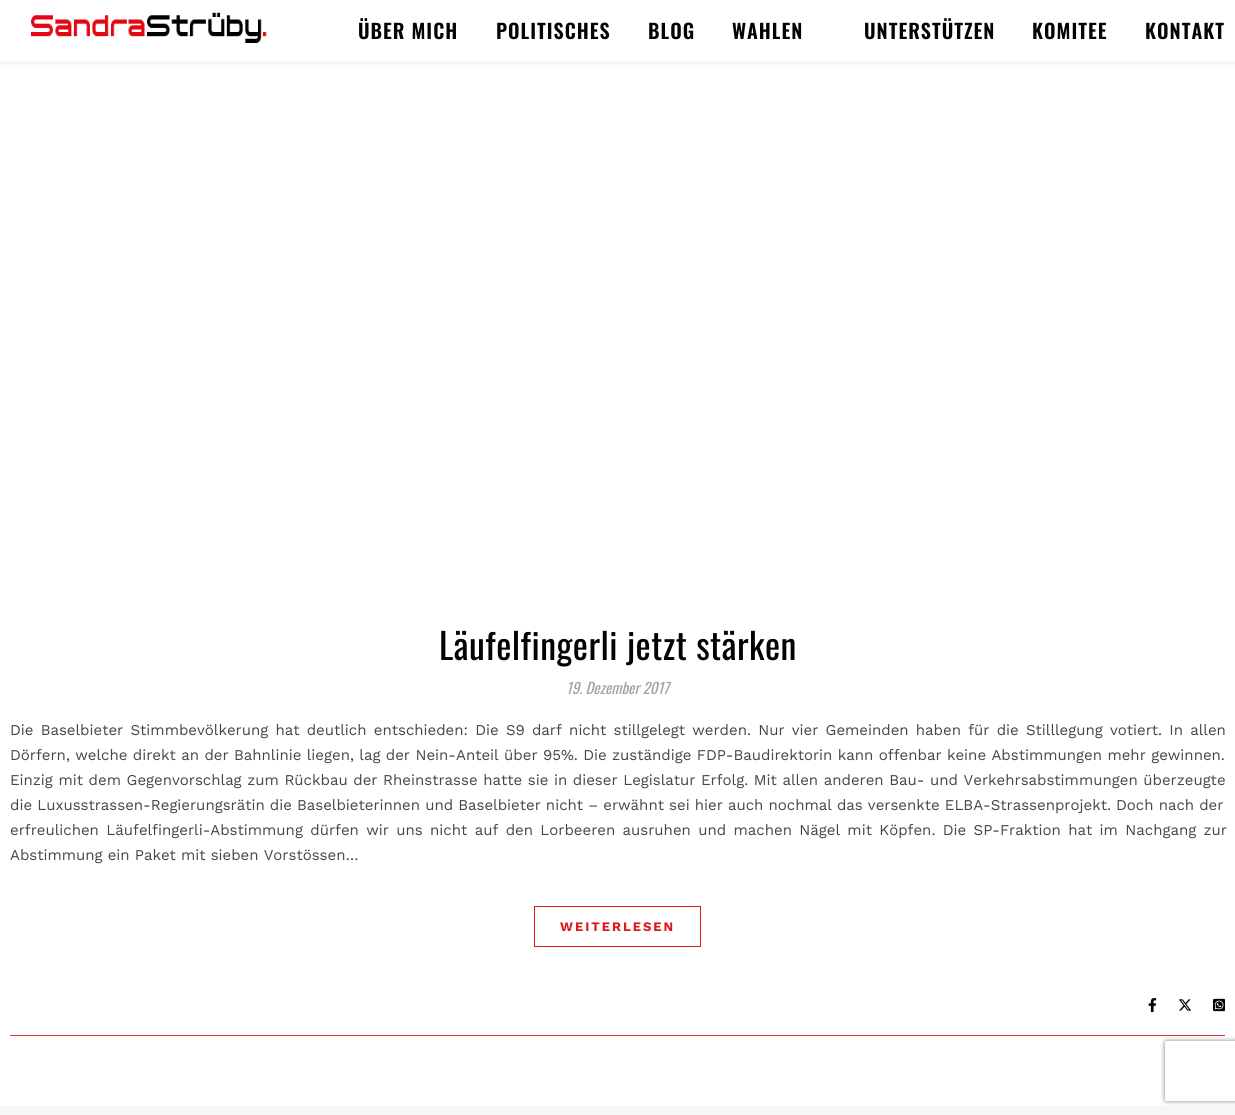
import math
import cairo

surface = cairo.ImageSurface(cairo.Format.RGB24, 1235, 1115)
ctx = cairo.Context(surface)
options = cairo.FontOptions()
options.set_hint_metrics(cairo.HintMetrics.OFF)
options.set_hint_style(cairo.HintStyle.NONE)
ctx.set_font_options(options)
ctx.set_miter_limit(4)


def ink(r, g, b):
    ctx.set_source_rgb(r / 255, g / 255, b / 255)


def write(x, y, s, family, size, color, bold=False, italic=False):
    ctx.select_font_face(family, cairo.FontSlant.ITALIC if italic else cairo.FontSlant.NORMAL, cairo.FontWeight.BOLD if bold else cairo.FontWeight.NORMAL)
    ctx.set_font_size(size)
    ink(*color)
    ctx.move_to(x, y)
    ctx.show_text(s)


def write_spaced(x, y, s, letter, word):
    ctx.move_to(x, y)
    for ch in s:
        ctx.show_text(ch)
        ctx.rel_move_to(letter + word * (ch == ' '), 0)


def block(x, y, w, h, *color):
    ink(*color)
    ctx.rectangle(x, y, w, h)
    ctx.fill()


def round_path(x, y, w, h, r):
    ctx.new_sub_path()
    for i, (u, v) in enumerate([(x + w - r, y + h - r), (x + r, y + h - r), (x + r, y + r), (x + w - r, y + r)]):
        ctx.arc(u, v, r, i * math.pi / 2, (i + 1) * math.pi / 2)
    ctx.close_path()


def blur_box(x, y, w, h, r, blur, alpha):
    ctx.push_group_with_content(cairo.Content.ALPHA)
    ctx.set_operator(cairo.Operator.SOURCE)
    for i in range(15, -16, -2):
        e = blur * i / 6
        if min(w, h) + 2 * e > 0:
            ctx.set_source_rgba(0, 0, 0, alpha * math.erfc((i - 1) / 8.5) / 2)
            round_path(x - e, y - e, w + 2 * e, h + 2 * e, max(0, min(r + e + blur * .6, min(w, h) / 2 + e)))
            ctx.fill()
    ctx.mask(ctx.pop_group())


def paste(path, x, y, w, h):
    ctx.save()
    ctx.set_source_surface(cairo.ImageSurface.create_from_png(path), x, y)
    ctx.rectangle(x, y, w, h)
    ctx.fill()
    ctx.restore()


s1 = dict(family="Oswald", size=15, color=(161, 161, 161), italic=True)
s2 = dict(family="Work Sans", size=15, color=(70, 70, 70))

ink(255, 255, 255)
ctx.paint()
ctx.save()
ctx.rectangle(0, 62, 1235, 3)
ctx.clip()
ink(0, 0, 0)
blur_box(0, 1, 1235, 62, 0, 2.5, 0.1)
ctx.restore()
paste("pic1.png", 31, 12, 236, 31)
ctx.select_font_face("Oswald SemiBold")
ctx.set_font_size(20)
ink(3, 3, 3)
write_spaced(358, 39, "ÜBER MICH", 1, 0)
write_spaced(496, 39, "POLITISCHES", 1, 0)
write_spaced(648, 39, "BLOG", 1, 0)
write_spaced(732, 39, "WAHLEN", 1, 0)
write_spaced(864, 39, "UNTERSTÜTZEN", 1, 0)
write_spaced(1032, 39, "KOMITEE", 1, 0)
write_spaced(1145, 39, "KONTAKT", 1, 0)
ctx.select_font_face("Oswald")
ctx.set_font_size(36)
write_spaced(439, 660, "Läufelfingerli jetzt stärken", 0.5, 0)
write(566, 694, "19. Dezember 2017", **s1)
ctx.select_font_face("Work Sans")
ink(70, 70, 70)
write_spaced(10, 735, "Die Baselbieter Stimmbevölkerung hat deutlich entschieden: Die S9 darf nicht stillgelegt werden. Nur vier Gemeinden haben für die Stilllegung votiert. In allen", 0, 2.1)
write_spaced(10, 760, "Dörfern, welche direkt an der Bahnlinie liegen, lag der Nein-Anteil über 95%. Die zuständige FDP-Baudirektorin kann offenbar keine Abstimmungen mehr gewinnen.", 0, 0.3)
write_spaced(10, 785, "Einzig mit dem Gegenvorschlag zum Rückbau der Rheinstrasse hatte sie in dieser Legislatur Erfolg. Mit allen anderen Bau- und Verkehrsabstimmungen überzeugte", 0, 0.5)
write(10, 810, "die Luxusstrassen-Regierungsrätin die Baselbieterinnen und Baselbieter nicht – erwähnt sei hier auch nochmal das versenkte ELBA-Strassenprojekt. Doch nach der", **s2)
write_spaced(10, 835, "erfreulichen Läufelfingerli-Abstimmung dürfen wir uns nicht auf den Lorbeeren ausruhen und machen Nägel mit Köpfen. Die SP-Fraktion hat im Nachgang zur", 0, 2.25)
write(10, 860, "Abstimmung ein Paket mit sieben Vorstössen…", **s2)
ctx.rectangle(534.5, 906.5, 166, 40)
ink(221, 26, 26)
ctx.set_line_width(1)
ctx.stroke()
ctx.select_font_face("Work Sans", cairo.FontSlant.NORMAL, cairo.FontWeight.BOLD)
ctx.set_font_size(13)
write_spaced(560, 931, "WEITERLESEN", 2, 0)
block(10, 1035, 1215, 1, 221, 51, 51)
paste("pic2.png", 1148, 998, 9, 14)
paste("pic3.png", 1178, 999, 14, 12)
paste("pic4.png", 1213, 998, 12, 14)
block(0, 1106, 1235, 9, 246, 246, 246)
ctx.save()
ctx.set_fill_rule(cairo.FillRule.EVEN_ODD)
ctx.new_path()
ctx.move_to(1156, 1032)
ctx.line_to(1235, 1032)
ctx.line_to(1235, 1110)
ctx.line_to(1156, 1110)
ctx.close_path()
ctx.move_to(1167, 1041)
ctx.line_to(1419, 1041)
ctx.curve_to(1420, 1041, 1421, 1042, 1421, 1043)
ctx.line_to(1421, 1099)
ctx.curve_to(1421, 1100, 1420, 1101, 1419, 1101)
ctx.line_to(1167, 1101)
ctx.curve_to(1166, 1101, 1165, 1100, 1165, 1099)
ctx.line_to(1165, 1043)
ctx.curve_to(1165, 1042, 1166, 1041, 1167, 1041)
ctx.close_path()
ctx.clip()
ink(128, 128, 128)
blur_box(1165, 1041, 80, 60, 2, 2.5, 1)
ctx.restore()
surface.write_to_png("screenshot.png")
